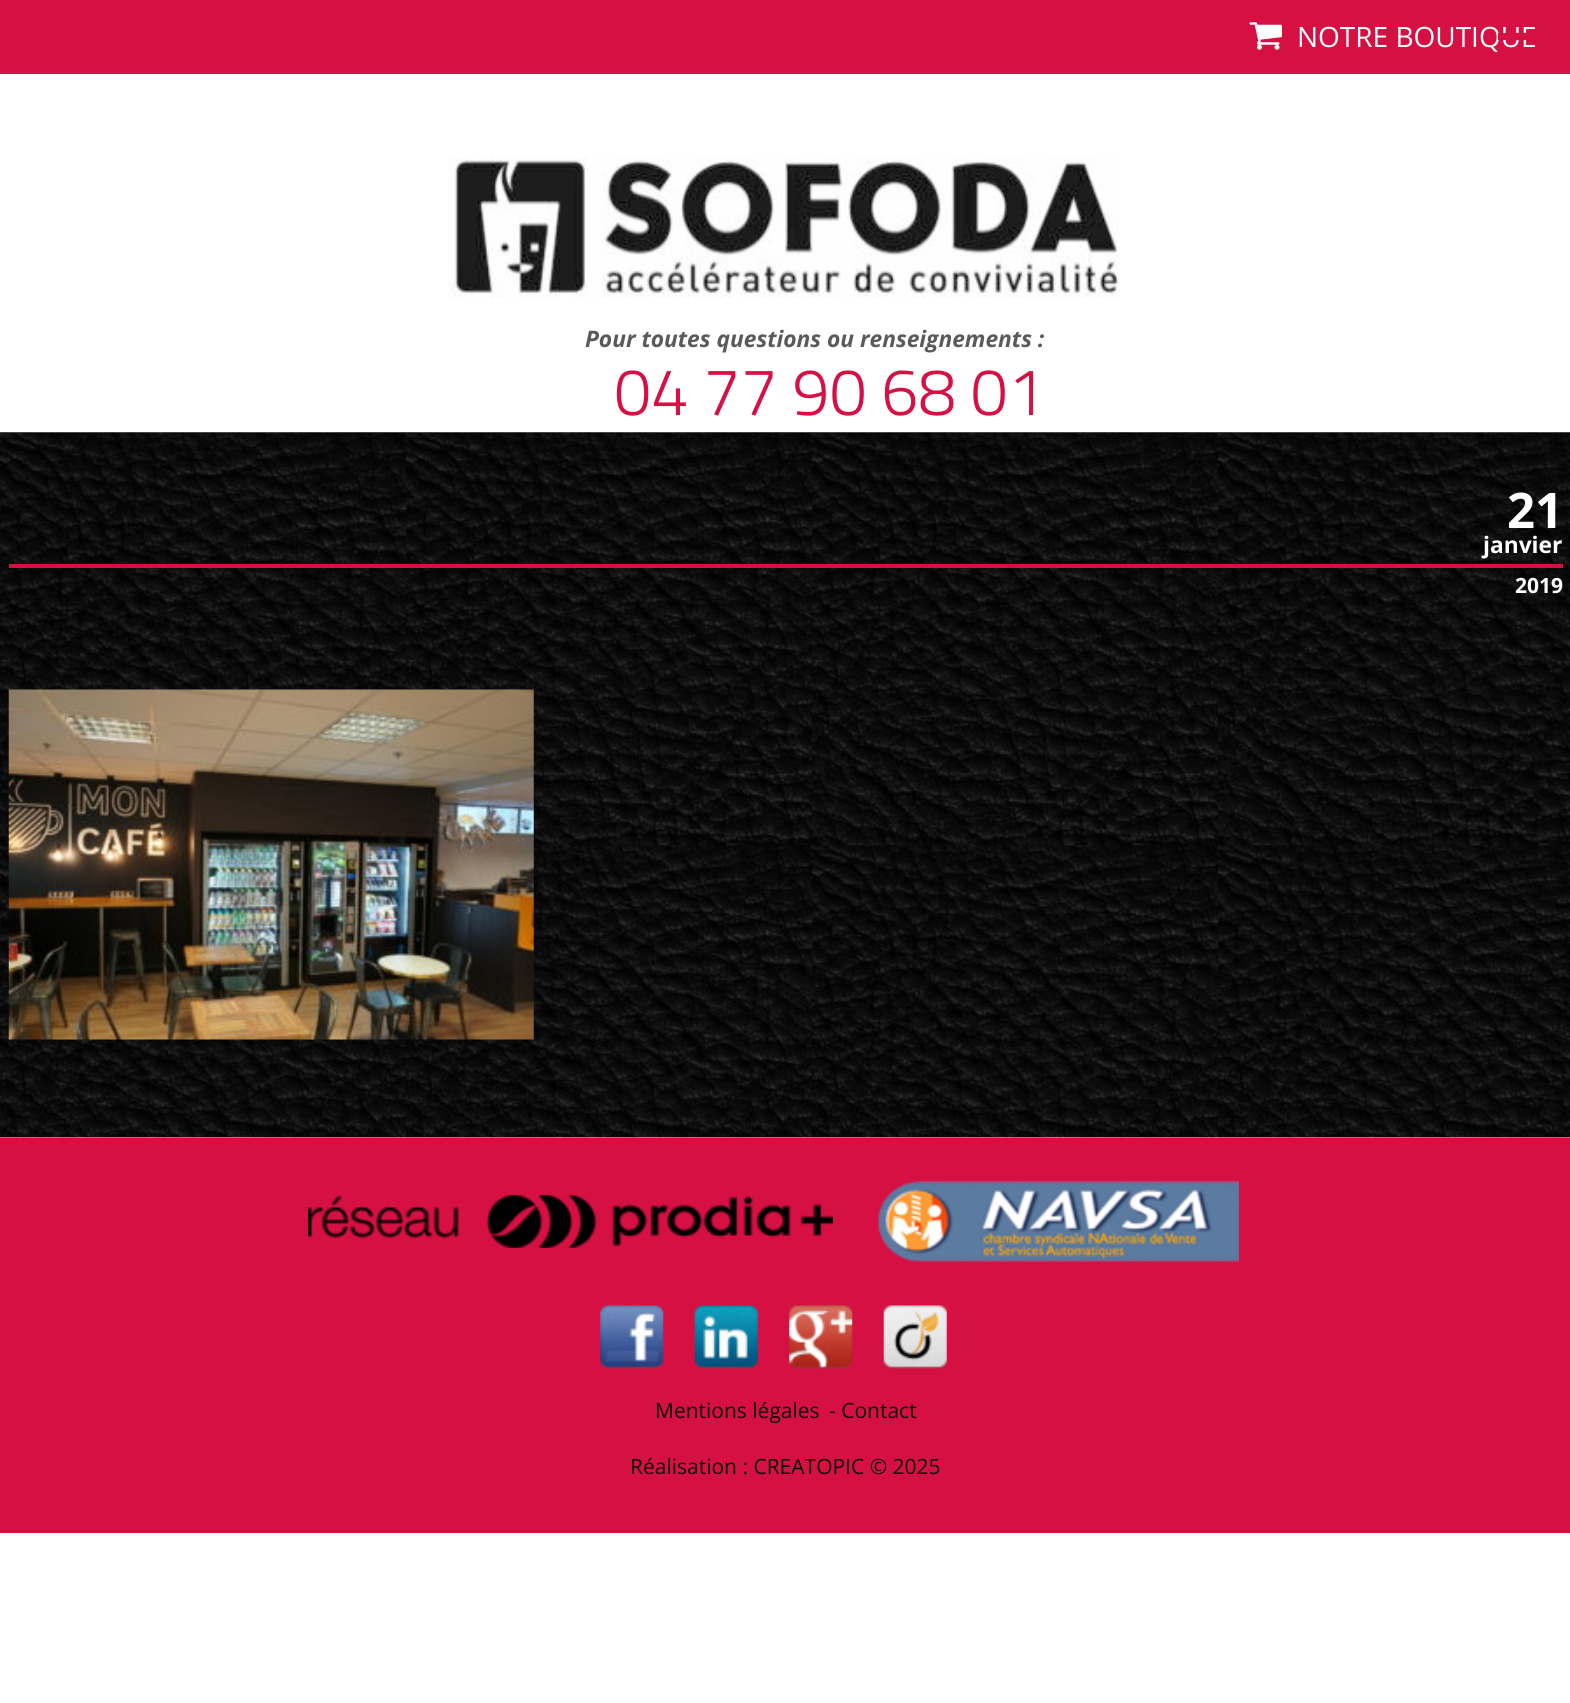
import math
import cairo

surface = cairo.ImageSurface(cairo.Format.RGB24, 1570, 1703)
ctx = cairo.Context(surface)
options = cairo.FontOptions()
options.set_hint_metrics(cairo.HintMetrics.OFF)
options.set_hint_style(cairo.HintStyle.NONE)
ctx.set_font_options(options)
ctx.set_miter_limit(4)


def ink(r, g, b):
    ctx.set_source_rgb(r / 255, g / 255, b / 255)


def write(x, y, s, family, size, color, bold=False, italic=False):
    ctx.select_font_face(family, cairo.FontSlant.ITALIC if italic else cairo.FontSlant.NORMAL, cairo.FontWeight.BOLD if bold else cairo.FontWeight.NORMAL)
    ctx.set_font_size(size)
    ink(*color)
    ctx.move_to(x, y)
    ctx.show_text(s)


def block(x, y, w, h, *color):
    ink(*color)
    ctx.rectangle(x, y, w, h)
    ctx.fill()


def paste(path, x, y, w, h):
    ctx.save()
    ctx.set_source_surface(cairo.ImageSurface.create_from_png(path), x, y)
    ctx.rectangle(x, y, w, h)
    ctx.fill()
    ctx.restore()


s1 = dict(family="Open Sans", size=28, color=(255, 255, 255))
s2 = dict(family="Open Sans", size=22.75, color=(90, 89, 91), bold=True, italic=True)
s3 = dict(family="Titillium Web Light", size=66.5, color=(214, 16, 67))
s4 = dict(family="Open Sans", size=49, color=(255, 255, 255), bold=True)
s5 = dict(family="Open Sans", size=22.75, color=(255, 255, 255), bold=True)
s6 = dict(family="Open Sans", size=21, color=(255, 255, 255), bold=True)
s7 = dict(family="Open Sans", size=21, color=(10, 10, 10))

ink(255, 255, 255)
ctx.paint()
block(0, 0, 1570, 74, 214, 16, 67)
paste("pic1.png", 1249, 22, 33, 28)
write(1297, 47, "NOTRE BOUTIQUE", **s1)
block(1498, 33, 37, 7, 214, 16, 67)
paste("pic2.png", 448, 157, 672, 141)
write(585, 347, "Pour toutes questions ou renseignements :", **s2)
write(614, 415, "04 77 90 68 01", **s3)
paste("pic3.png", 0, 432, 1570, 706)
write(1507, 528, "21", **s4)
write(1483, 553, "janvier", **s5)
block(9, 564, 1554, 4, 214, 16, 67)
write(1515, 593, "2019", **s6)
paste("pic4.png", 8, 689, 526, 351)
block(0, 1138, 1570, 395, 214, 16, 67)
paste("pic5.png", 308, 1195, 525, 53)
paste("pic6.png", 878, 1181, 361, 81)
paste("pic7.png", 600, 1305, 64, 64)
paste("pic8.png", 694, 1305, 64, 64)
paste("pic9.png", 789, 1305, 64, 64)
paste("pic10.png", 883, 1305, 64, 64)
write(655, 1418, "Mentions légales", **s7)
write(829, 1418, "- Contact", **s7)
write(630, 1474, "Réalisation : CREATOPIC © 2025", **s7)
surface.write_to_png("screenshot.png")
